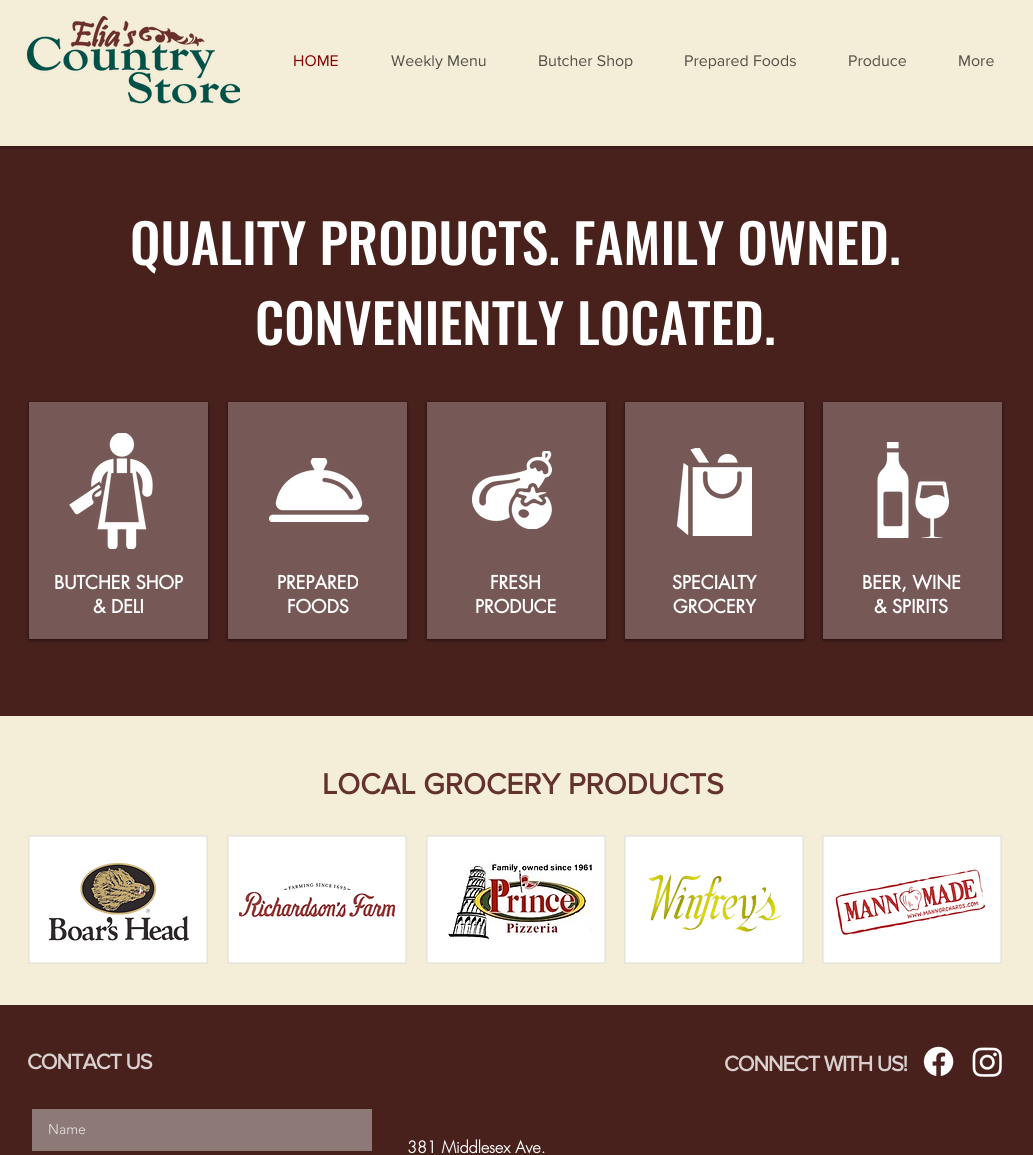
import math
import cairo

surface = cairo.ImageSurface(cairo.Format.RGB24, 1033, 1155)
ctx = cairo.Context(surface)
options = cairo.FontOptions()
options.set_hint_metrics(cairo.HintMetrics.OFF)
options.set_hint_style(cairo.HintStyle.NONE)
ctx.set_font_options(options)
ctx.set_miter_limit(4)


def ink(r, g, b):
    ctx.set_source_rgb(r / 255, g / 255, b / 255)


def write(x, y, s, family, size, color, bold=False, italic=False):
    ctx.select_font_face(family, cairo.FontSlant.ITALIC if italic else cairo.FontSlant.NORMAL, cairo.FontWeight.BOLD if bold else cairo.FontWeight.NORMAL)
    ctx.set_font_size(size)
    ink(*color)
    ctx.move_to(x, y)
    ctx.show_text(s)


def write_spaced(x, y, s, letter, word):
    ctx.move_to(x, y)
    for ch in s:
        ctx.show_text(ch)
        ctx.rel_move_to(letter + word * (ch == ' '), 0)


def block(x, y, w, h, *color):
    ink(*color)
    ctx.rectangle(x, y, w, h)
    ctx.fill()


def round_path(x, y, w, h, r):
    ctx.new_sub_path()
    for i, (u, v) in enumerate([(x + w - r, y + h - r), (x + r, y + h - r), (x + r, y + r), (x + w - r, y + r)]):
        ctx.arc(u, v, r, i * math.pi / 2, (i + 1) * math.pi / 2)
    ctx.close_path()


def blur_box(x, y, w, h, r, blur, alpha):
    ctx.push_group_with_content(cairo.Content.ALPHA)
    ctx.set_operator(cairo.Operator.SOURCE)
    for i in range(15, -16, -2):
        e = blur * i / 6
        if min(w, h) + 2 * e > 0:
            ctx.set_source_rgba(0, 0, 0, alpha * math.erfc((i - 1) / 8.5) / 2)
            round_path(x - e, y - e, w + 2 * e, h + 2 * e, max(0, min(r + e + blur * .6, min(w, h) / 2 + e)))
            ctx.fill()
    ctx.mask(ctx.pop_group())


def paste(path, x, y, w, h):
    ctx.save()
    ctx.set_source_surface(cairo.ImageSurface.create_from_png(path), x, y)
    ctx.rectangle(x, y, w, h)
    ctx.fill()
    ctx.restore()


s1 = dict(family="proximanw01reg", size=16, color=(139, 0, 0))
s2 = dict(family="proximanw01reg", size=16, color=(83, 80, 72))
s3 = dict(family="Oswald Medium", size=54, color=(255, 255, 255))
s4 = dict(family="futura", size=18, color=(255, 255, 255), bold=True)
s5 = dict(family="proximanw01reg", size=30, color=(100, 50, 44), bold=True)
s6 = dict(family="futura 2", size=16, color=(255, 255, 255), bold=True)
s7 = dict(family="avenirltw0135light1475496 Light", size=14, color=(232, 230, 230))

ink(244, 237, 215)
ctx.paint()
block(0, 146, 1033, 570, 72, 33, 29)
ctx.save()
ctx.rectangle(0, 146, 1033, 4)
ctx.clip()
ink(0, 0, 0)
blur_box(0, 0, 1033, 146, 0, 2.5, 0.5)
ctx.restore()
paste("pic1.png", 27, 16, 213, 88)
write(293, 66, "HOME", **s1)
write(391, 66, "Weekly Menu", **s2)
write(538, 66, "Butcher Shop", **s2)
write(684, 66, "Prepared Foods", **s2)
write(848, 66, "Produce", **s2)
write(958, 66, "More", **s2)
block(823, 402, 179, 237, 118, 89, 86)
block(625, 402, 179, 237, 118, 89, 86)
block(427, 402, 179, 237, 118, 89, 86)
block(228, 402, 179, 237, 118, 89, 86)
block(29, 402, 179, 237, 118, 89, 86)
write(130, 265, "QUALITY PRODUCTS. FAMILY OWNED.", **s3)
write(255, 345, "CONVENIENTLY LOCATED.", **s3)
paste("pic2.png", 69, 433, 84, 116)
ctx.save()
ctx.set_fill_rule(cairo.FillRule.EVEN_ODD)
ctx.new_path()
ctx.move_to(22, 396)
ctx.line_to(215, 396)
ctx.line_to(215, 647)
ctx.line_to(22, 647)
ctx.close_path()
ctx.move_to(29, 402)
ctx.line_to(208, 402)
ctx.line_to(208, 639)
ctx.line_to(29, 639)
ctx.close_path()
ctx.clip()
ink(0, 0, 0)
blur_box(29, 403, 179, 237, 0, 2, 0.6)
ctx.restore()
paste("pic3.png", 269, 458, 100, 64)
ctx.save()
ctx.set_fill_rule(cairo.FillRule.EVEN_ODD)
ctx.new_path()
ctx.move_to(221, 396)
ctx.line_to(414, 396)
ctx.line_to(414, 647)
ctx.line_to(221, 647)
ctx.close_path()
ctx.move_to(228, 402)
ctx.line_to(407, 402)
ctx.line_to(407, 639)
ctx.line_to(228, 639)
ctx.close_path()
ctx.clip()
ink(0, 0, 0)
blur_box(228, 403, 179, 237, 0, 2, 0.6)
ctx.restore()
paste("pic4.png", 472, 451, 80, 78)
ctx.save()
ctx.set_fill_rule(cairo.FillRule.EVEN_ODD)
ctx.new_path()
ctx.move_to(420, 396)
ctx.line_to(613, 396)
ctx.line_to(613, 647)
ctx.line_to(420, 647)
ctx.close_path()
ctx.move_to(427, 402)
ctx.line_to(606, 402)
ctx.line_to(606, 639)
ctx.line_to(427, 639)
ctx.close_path()
ctx.clip()
ink(0, 0, 0)
blur_box(427, 403, 179, 237, 0, 2, 0.6)
ctx.restore()
paste("pic5.png", 677, 448, 75, 88)
ctx.save()
ctx.set_fill_rule(cairo.FillRule.EVEN_ODD)
ctx.new_path()
ctx.move_to(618, 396)
ctx.line_to(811, 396)
ctx.line_to(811, 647)
ctx.line_to(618, 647)
ctx.close_path()
ctx.move_to(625, 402)
ctx.line_to(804, 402)
ctx.line_to(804, 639)
ctx.line_to(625, 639)
ctx.close_path()
ctx.clip()
ink(0, 0, 0)
blur_box(625, 403, 179, 237, 0, 2, 0.6)
ctx.restore()
paste("pic6.png", 877, 442, 72, 96)
ctx.save()
ctx.set_fill_rule(cairo.FillRule.EVEN_ODD)
ctx.new_path()
ctx.move_to(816, 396)
ctx.line_to(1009, 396)
ctx.line_to(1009, 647)
ctx.line_to(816, 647)
ctx.close_path()
ctx.move_to(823, 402)
ctx.line_to(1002, 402)
ctx.line_to(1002, 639)
ctx.line_to(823, 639)
ctx.close_path()
ctx.clip()
ink(0, 0, 0)
blur_box(823, 403, 179, 237, 0, 2, 0.6)
ctx.restore()
write(54, 589, "BUTCHER SHOP", **s4)
write(93, 613, "& DELI", **s4)
write(277, 589, "PREPARED", **s4)
write(287, 613, "FOODS", **s4)
write(490, 589, "FRESH", **s4)
write(475, 613, "PRODUCE", **s4)
write(672, 589, "SPECIALTY", **s4)
write(673, 613, "GROCERY", **s4)
write(862, 589, "BEER, WINE", **s4)
write(874, 613, "& SPIRITS", **s4)
write(322, 794, "LOCAL GROCERY PRODUCTS", **s5)
block(29, 836, 178, 127, 255, 255, 255)
ctx.new_path()
ctx.move_to(207, 836)
ctx.line_to(207, 963)
ctx.line_to(29, 963)
ctx.line_to(29, 836)
ctx.close_path()
ink(219, 219, 219)
ctx.set_line_width(1)
ctx.stroke()
block(228, 836, 178, 127, 255, 255, 255)
ctx.new_path()
ctx.move_to(406, 836)
ctx.line_to(406, 963)
ctx.line_to(228, 963)
ctx.line_to(228, 836)
ctx.close_path()
ink(219, 219, 219)
ctx.stroke()
block(427, 836, 178, 127, 255, 255, 255)
ctx.new_path()
ctx.move_to(605, 836)
ctx.line_to(605, 963)
ctx.line_to(427, 963)
ctx.line_to(427, 836)
ctx.close_path()
ink(219, 219, 219)
ctx.stroke()
block(625, 836, 178, 127, 255, 255, 255)
ctx.new_path()
ctx.move_to(803, 836)
ctx.line_to(803, 963)
ctx.line_to(625, 963)
ctx.line_to(625, 836)
ctx.close_path()
ink(219, 219, 219)
ctx.stroke()
block(823, 836, 178, 127, 255, 255, 255)
ctx.new_path()
ctx.move_to(1001, 836)
ctx.line_to(1001, 963)
ctx.line_to(823, 963)
ctx.line_to(823, 836)
ctx.close_path()
ink(219, 219, 219)
ctx.stroke()
paste("pic7.png", 49, 863, 140, 78)
paste("pic8.png", 239, 882, 156, 36)
paste("pic9.png", 448, 861, 144, 78)
paste("pic10.png", 649, 874, 132, 58)
paste("pic11.png", 835, 869, 150, 66)
block(0, 1005, 1033, 150, 72, 33, 29)
ctx.set_font_size(22)
ink(218, 208, 207)
write_spaced(27, 1069, "CONTACT US", -1.1, 0)
write_spaced(724, 1071, "CONNECT WITH US!", -1.1, 0)
paste("pic12.png", 923, 1046, 31, 30)
paste("pic13.png", 972, 1047, 30, 30)
write(407, 1153, "381 Middlesex Ave.", **s6)
block(32, 1109, 340, 42, 141, 122, 119)
write(48, 1134, "Name", **s7)
surface.write_to_png("screenshot.png")
